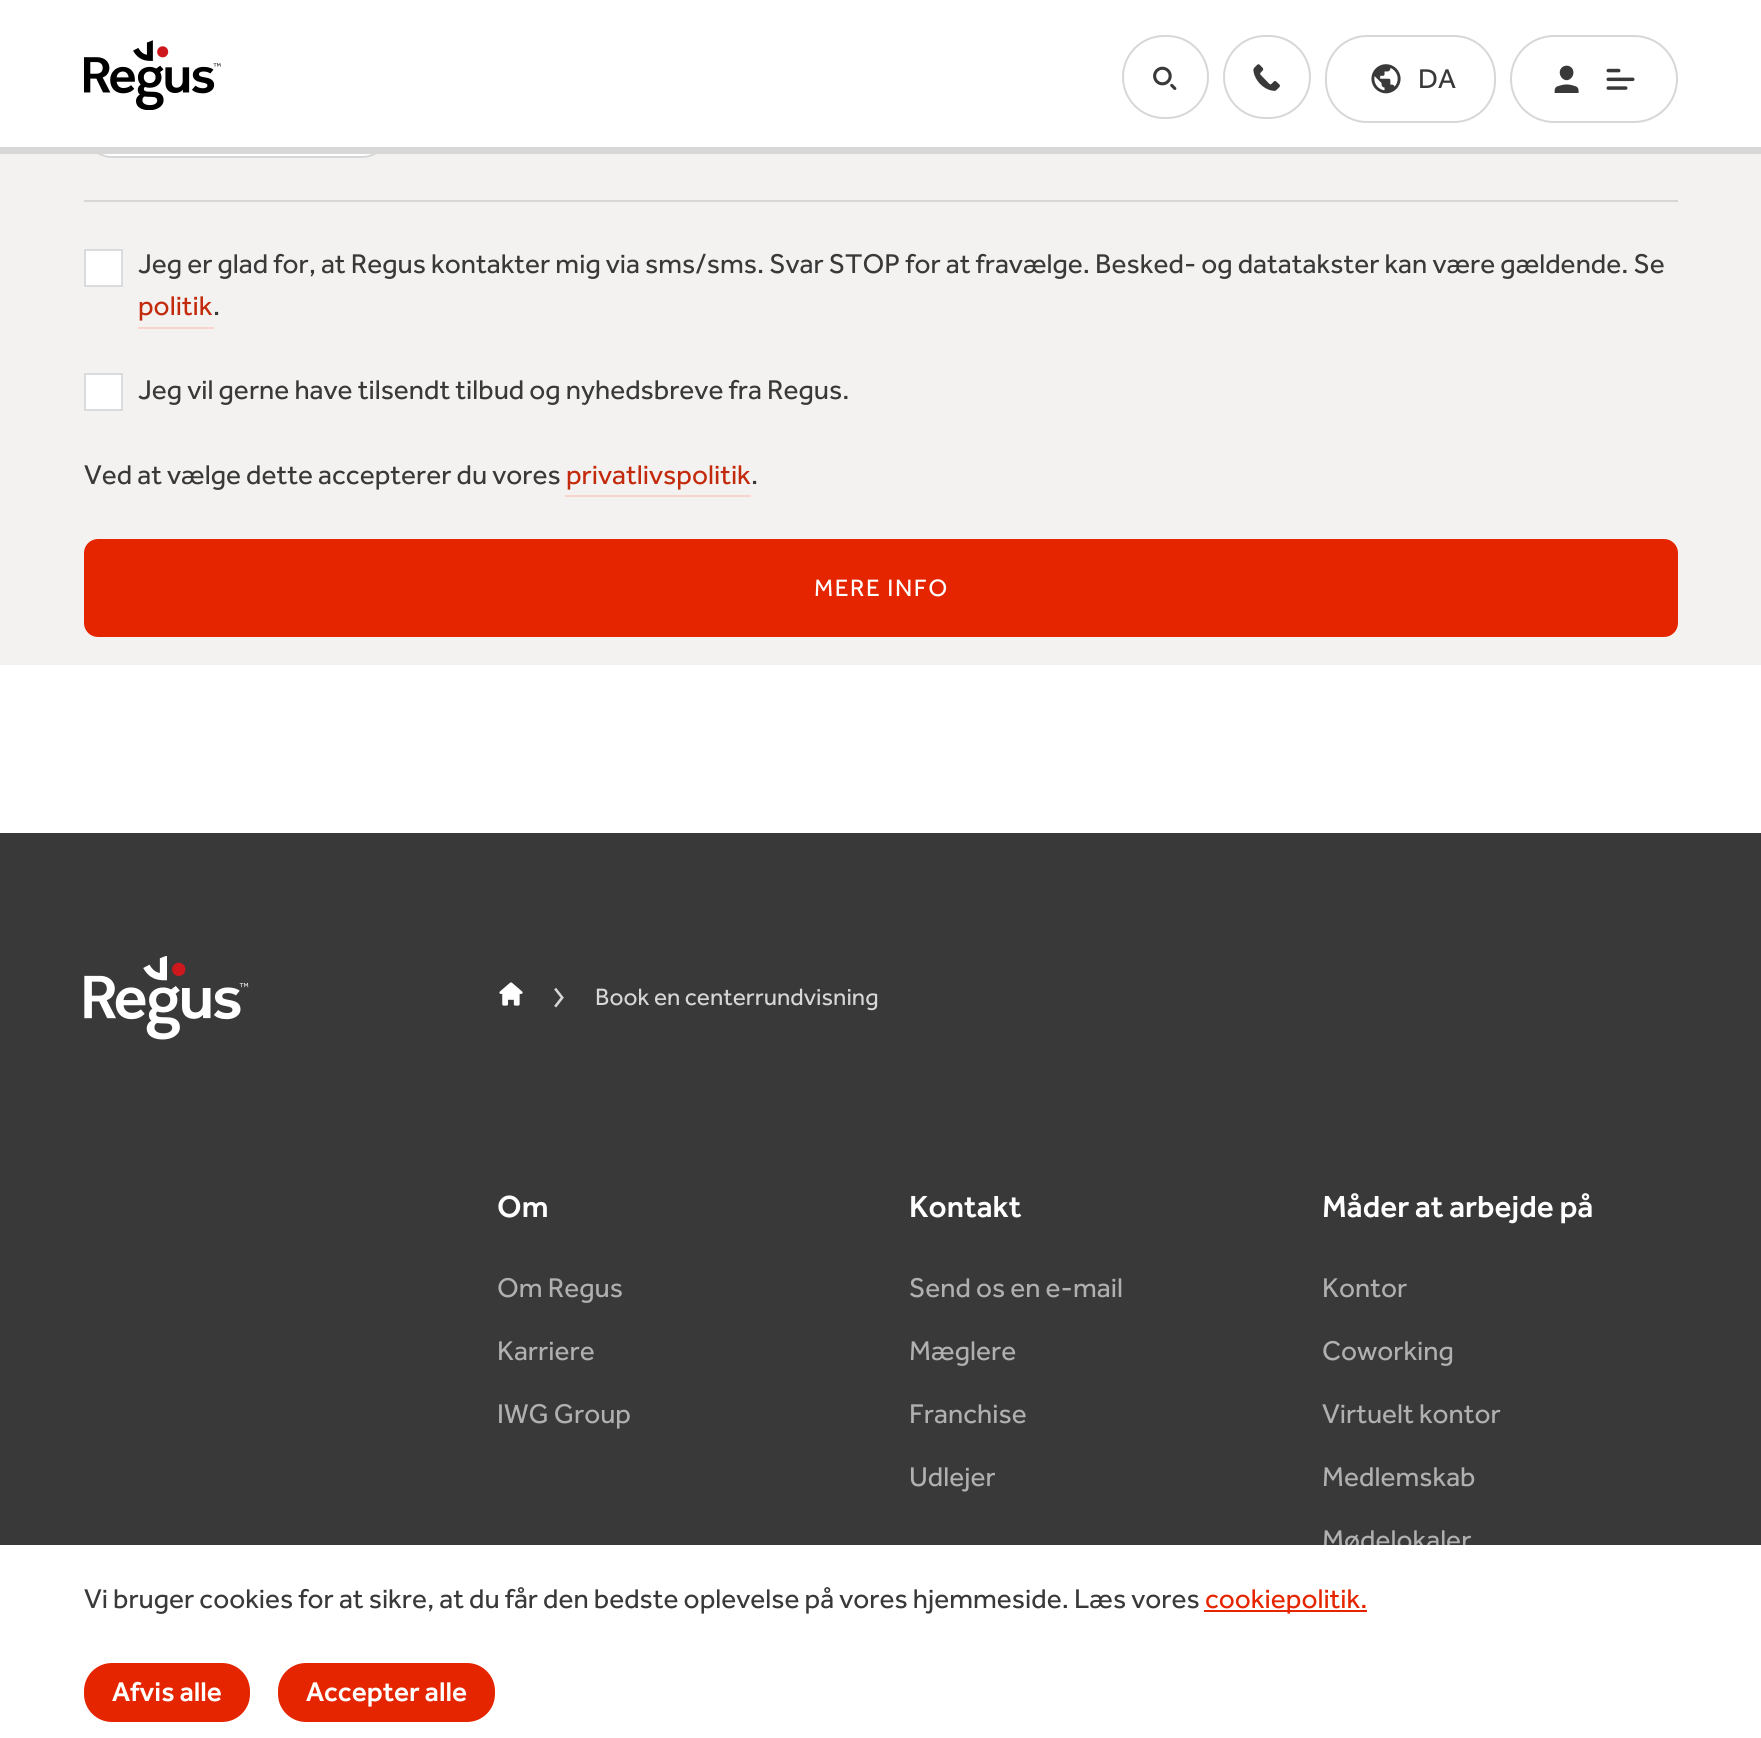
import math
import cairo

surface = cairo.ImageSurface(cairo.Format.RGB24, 1761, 1738)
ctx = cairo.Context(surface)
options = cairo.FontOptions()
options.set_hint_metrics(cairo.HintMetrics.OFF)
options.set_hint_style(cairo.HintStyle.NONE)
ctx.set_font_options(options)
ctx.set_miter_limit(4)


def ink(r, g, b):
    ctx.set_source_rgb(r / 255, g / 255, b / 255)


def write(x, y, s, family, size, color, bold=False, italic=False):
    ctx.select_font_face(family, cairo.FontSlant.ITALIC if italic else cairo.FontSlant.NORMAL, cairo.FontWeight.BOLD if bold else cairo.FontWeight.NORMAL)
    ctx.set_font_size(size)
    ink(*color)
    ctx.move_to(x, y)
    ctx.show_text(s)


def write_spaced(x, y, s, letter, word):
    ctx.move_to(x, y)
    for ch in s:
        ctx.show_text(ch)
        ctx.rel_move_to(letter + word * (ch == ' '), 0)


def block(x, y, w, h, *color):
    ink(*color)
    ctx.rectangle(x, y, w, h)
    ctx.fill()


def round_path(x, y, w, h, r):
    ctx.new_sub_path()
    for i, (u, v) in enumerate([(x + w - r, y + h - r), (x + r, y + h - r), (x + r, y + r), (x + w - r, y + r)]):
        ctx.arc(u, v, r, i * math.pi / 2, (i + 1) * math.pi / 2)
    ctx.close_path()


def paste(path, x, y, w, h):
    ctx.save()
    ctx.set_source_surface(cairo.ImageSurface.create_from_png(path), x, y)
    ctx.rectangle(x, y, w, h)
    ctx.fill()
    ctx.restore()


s1 = dict(family="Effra", size=28, color=(57, 57, 57))
s2 = dict(family="Effra", size=28, color=(195, 41, 11))
s3 = dict(family="Effra", size=24.5, color=(215, 215, 215))
s4 = dict(family="Effra Medium", size=31.5, color=(255, 255, 255))
s5 = dict(family="Effra", size=28, color=(176, 176, 176))
s6 = dict(family="Effra", size=28, color=(229, 37, 0))
s7 = dict(family="Effra Medium", size=28, color=(255, 255, 255))

ink(255, 255, 255)
ctx.paint()
block(0, 154, 1761, 511, 243, 242, 240)
ink(255, 255, 255)
round_path(85, 99, 304, 58, 27)
ctx.fill_preserve()
ink(215, 215, 215)
ctx.stroke()
block(84, 98, 306, 49, 255, 255, 255)
paste("pic1.png", 84, 40, 137, 70)
round_path(1123, 36, 85, 82, 41)
ink(215, 215, 215)
ctx.stroke()
paste("pic2.png", 1153, 66, 24, 24)
round_path(1224, 36, 86, 82, 41)
ctx.stroke()
paste("pic3.png", 1253, 64, 27, 27)
round_path(1326, 36, 169, 86, 41)
ctx.stroke()
paste("pic4.png", 1371, 64, 30, 30)
write(1418, 88, "DA", **s1)
round_path(1511, 36, 166, 86, 43)
ink(215, 215, 215)
ctx.stroke()
paste("pic5.png", 1554, 65, 25, 28)
paste("pic6.png", 1606, 68, 29, 22)
block(0, 147, 1761, 7, 215, 215, 215)
block(84, 200, 1594, 2, 215, 215, 215)
ink(255, 255, 255)
ctx.rectangle(85, 250, 37, 36)
ctx.fill_preserve()
ink(217, 219, 221)
ctx.stroke()
write(138, 273, "Jeg er glad for, at Regus kontakter mig via sms/sms. Svar STOP for at fravælge. Besked- og datatakster kan være gældende. Se", **s1)
block(138, 327, 76, 2, 250, 211, 204)
write(138, 315, "politik", **s2)
write(213, 315, ".", **s1)
ink(255, 255, 255)
ctx.rectangle(85, 374, 37, 36)
ctx.fill_preserve()
ink(217, 219, 221)
ctx.stroke()
write(138, 399, "Jeg vil gerne have tilsendt tilbud og nyhedsbreve fra Regus.", **s1)
write(84, 484, "Ved at vælge dette accepterer du vores", **s1)
block(565, 495, 186, 2, 250, 211, 204)
write(566, 484, "privatlivspolitik", **s2)
write(751, 484, ".", **s1)
ink(229, 37, 0)
round_path(84, 539, 1594, 98, 14)
ctx.fill()
ctx.set_font_size(24.5)
ink(255, 255, 255)
write_spaced(814, 596, "MERE INFO", 1.5, 0)
block(0, 833, 1761, 712, 57, 57, 57)
paste("pic7.png", 84, 956, 165, 84)
paste("pic8.png", 499, 982, 24, 24)
paste("pic9.png", 554, 987, 10, 21)
write(595, 1005, "Book en centerrundvisning", **s3)
write(497, 1217, "Om", **s4)
write(497, 1297, "Om Regus", **s5)
write(497, 1360, "Karriere", **s5)
write(497, 1423, "IWG Group", **s5)
write(909, 1217, "Kontakt", **s4)
write(909, 1297, "Send os en e-mail", **s5)
write(909, 1360, "Mæglere", **s5)
write(909, 1423, "Franchise", **s5)
write(909, 1486, "Udlejer", **s5)
write(1322, 1217, "Måder at arbejde på", **s4)
write(1322, 1297, "Kontor", **s5)
write(1322, 1360, "Coworking", **s5)
write(1322, 1423, "Virtuelt kontor", **s5)
write(1322, 1486, "Medlemskab", **s5)
write(1322, 1549, "Mødelokaler", **s5)
block(1323, 1545, 143, 6, 255, 255, 255)
write(84, 1608, "Vi bruger cookies for at sikre, at du får den bedste oplevelse på vores hjemmeside. Læs vores", **s1)
block(1204, 1610, 163, 2, 229, 37, 0)
write(1205, 1608, "cookiepolitik.", **s6)
round_path(84, 1663, 166, 59, 28)
ctx.fill()
write(112, 1701, "Afvis alle", **s7)
ink(229, 37, 0)
round_path(278, 1663, 217, 59, 28)
ctx.fill()
write(306, 1701, "Accepter alle", **s7)
surface.write_to_png("screenshot.png")
